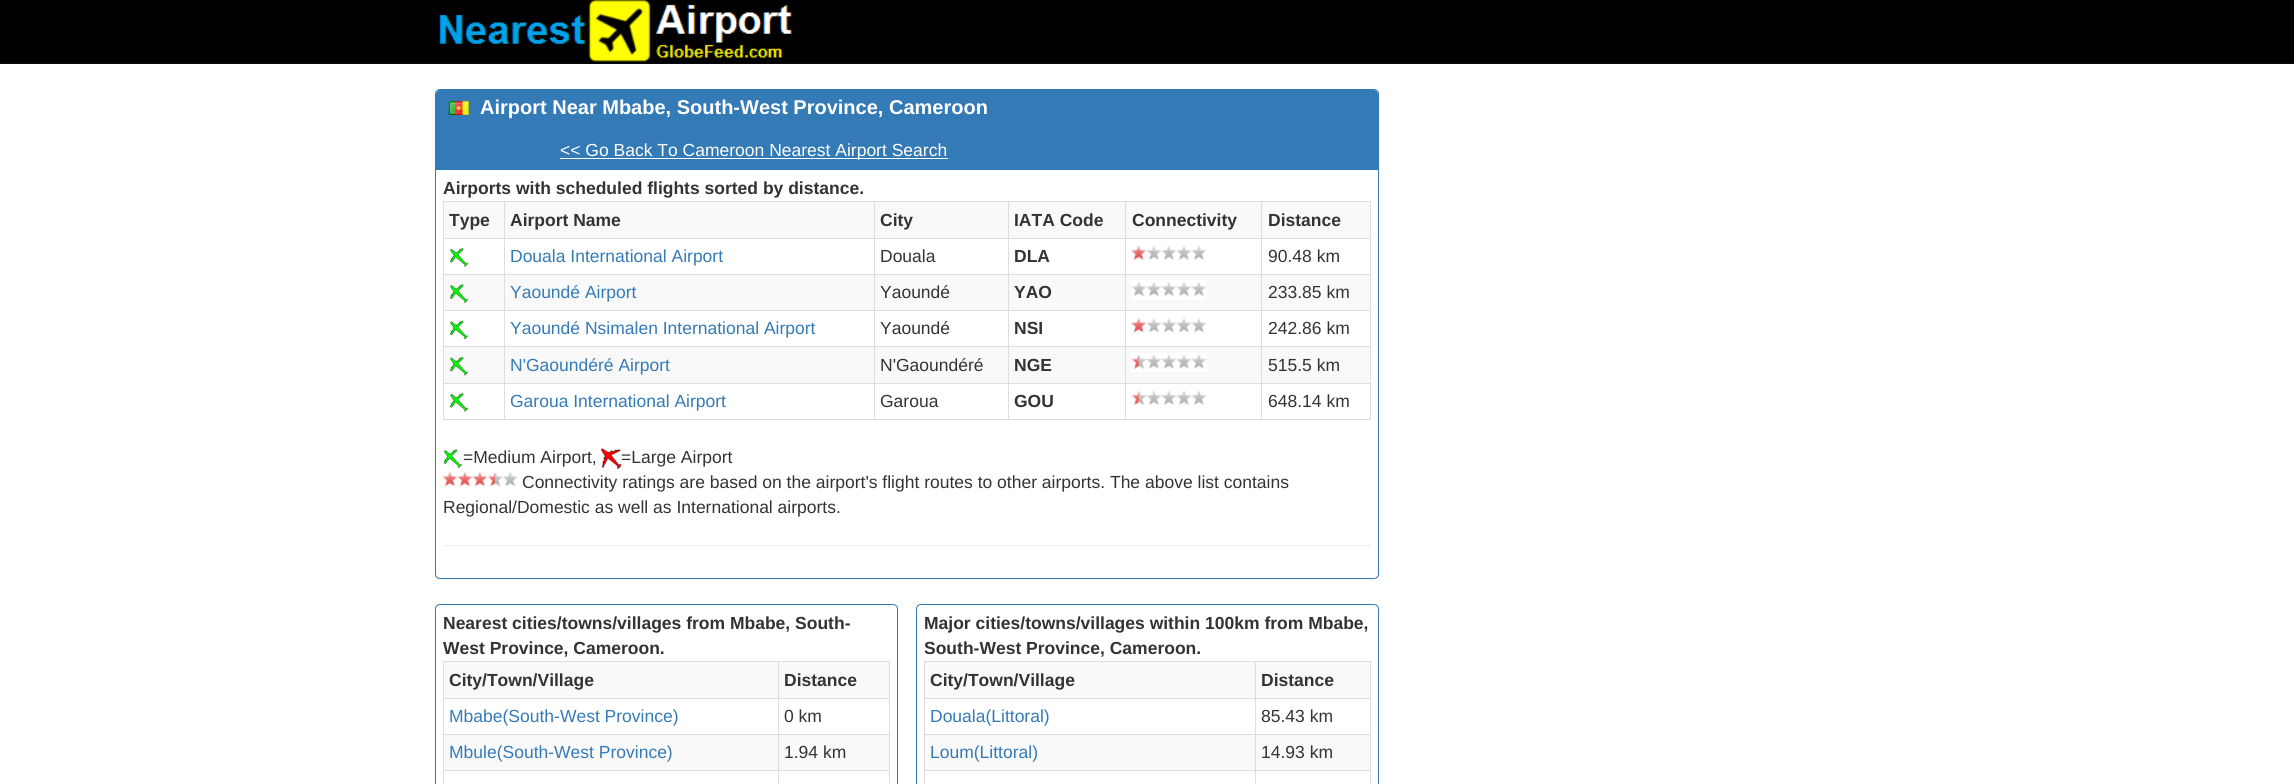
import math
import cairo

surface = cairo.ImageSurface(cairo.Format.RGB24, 2294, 784)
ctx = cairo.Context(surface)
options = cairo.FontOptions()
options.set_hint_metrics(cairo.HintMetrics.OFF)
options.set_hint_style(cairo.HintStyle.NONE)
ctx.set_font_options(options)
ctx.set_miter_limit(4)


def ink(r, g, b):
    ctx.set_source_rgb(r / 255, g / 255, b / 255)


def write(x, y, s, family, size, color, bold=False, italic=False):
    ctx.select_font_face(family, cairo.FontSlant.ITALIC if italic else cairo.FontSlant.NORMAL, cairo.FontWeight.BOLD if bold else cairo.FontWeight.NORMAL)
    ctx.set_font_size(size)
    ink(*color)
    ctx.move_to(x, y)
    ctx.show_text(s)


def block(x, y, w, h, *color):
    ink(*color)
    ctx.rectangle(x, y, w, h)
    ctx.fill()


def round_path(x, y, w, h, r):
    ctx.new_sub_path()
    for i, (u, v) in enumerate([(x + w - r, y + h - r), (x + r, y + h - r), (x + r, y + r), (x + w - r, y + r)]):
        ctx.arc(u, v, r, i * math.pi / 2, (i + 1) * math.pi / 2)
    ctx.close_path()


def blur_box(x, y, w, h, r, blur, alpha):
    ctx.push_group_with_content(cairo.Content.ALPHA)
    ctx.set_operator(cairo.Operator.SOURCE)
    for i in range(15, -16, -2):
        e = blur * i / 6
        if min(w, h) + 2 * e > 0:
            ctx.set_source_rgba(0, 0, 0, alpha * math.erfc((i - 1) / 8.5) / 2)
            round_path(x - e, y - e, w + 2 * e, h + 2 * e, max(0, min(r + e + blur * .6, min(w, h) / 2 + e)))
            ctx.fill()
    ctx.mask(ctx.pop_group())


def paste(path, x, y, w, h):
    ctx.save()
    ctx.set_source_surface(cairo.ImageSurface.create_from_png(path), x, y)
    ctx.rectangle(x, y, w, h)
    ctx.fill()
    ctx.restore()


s1 = dict(family="Liberation Sans", size=20, color=(255, 255, 255), bold=True)
s2 = dict(family="Liberation Sans", size=17.5, color=(255, 255, 255))
s3 = dict(family="Liberation Sans", size=17.5, color=(51, 51, 51), bold=True)
s4 = dict(family="Liberation Sans", size=17.5, color=(51, 122, 183))
s5 = dict(family="Liberation Sans", size=17.5, color=(51, 51, 51))

ink(255, 255, 255)
ctx.paint()
block(0, 0, 2294, 63, 0, 0, 0)
block(0, 63, 2294, 1, 8, 8, 8)
paste("pic1.png", 438, 0, 354, 62)
ink(0, 0, 0)
blur_box(435, 90, 944, 490, 5, 0.5, 0.05)
ink(255, 255, 255)
round_path(435.5, 89.5, 943, 489, 4.5)
ctx.fill_preserve()
ink(51, 122, 183)
ctx.set_line_width(1)
ctx.stroke()
ctx.new_path()
ctx.move_to(440, 90)
ctx.line_to(1374, 90)
ctx.curve_to(1376, 90, 1378, 92, 1378, 94)
ctx.line_to(1378, 170)
ctx.line_to(436, 170)
ctx.line_to(436, 94)
ctx.curve_to(436, 92, 438, 90, 440, 90)
ctx.close_path()
ctx.fill()
paste("pic2.png", 448, 101, 21, 14)
write(480, 114, "Airport Near Mbabe, South-West Province, Cameroon", **s1)
block(560, 158, 388, 1, 255, 255, 255)
write(560, 156, "<< Go Back To Cameroon Nearest Airport Search", **s2)
write(443, 194, "Airports with scheduled flights sorted by distance.", **s3)
block(443, 201, 928, 1, 221, 221, 221)
block(1370, 201, 1, 219, 221, 221, 221)
block(443, 419, 928, 1, 221, 221, 221)
block(443, 201, 1, 219, 221, 221, 221)
block(444, 202, 926, 36, 249, 249, 249)
write(449, 226, "Type", **s3)
block(1261, 238, 110, 1, 221, 221, 221)
block(1261, 274, 110, 1, 221, 221, 221)
block(444, 275, 926, 35, 249, 249, 249)
block(1261, 310, 110, 1, 221, 221, 221)
block(444, 347, 926, 36, 249, 249, 249)
block(1261, 346, 110, 1, 221, 221, 221)
block(1261, 383, 110, 1, 221, 221, 221)
block(1261, 383, 1, 37, 221, 221, 221)
block(1125, 383, 138, 1, 221, 221, 221)
block(1261, 346, 1, 38, 221, 221, 221)
block(1125, 346, 138, 1, 221, 221, 221)
block(1261, 310, 1, 38, 221, 221, 221)
block(1125, 310, 138, 1, 221, 221, 221)
block(1261, 274, 1, 37, 221, 221, 221)
block(1125, 274, 138, 1, 221, 221, 221)
block(1261, 238, 1, 37, 221, 221, 221)
block(1125, 238, 138, 1, 221, 221, 221)
block(1125, 383, 1, 37, 221, 221, 221)
block(1008, 383, 118, 1, 221, 221, 221)
block(1125, 346, 1, 38, 221, 221, 221)
block(1008, 346, 118, 1, 221, 221, 221)
block(1125, 310, 1, 38, 221, 221, 221)
block(1008, 310, 118, 1, 221, 221, 221)
block(1125, 274, 1, 37, 221, 221, 221)
block(1008, 274, 118, 1, 221, 221, 221)
block(1125, 238, 1, 37, 221, 221, 221)
block(1008, 238, 118, 1, 221, 221, 221)
block(1008, 383, 1, 37, 221, 221, 221)
block(874, 383, 135, 1, 221, 221, 221)
block(1008, 346, 1, 38, 221, 221, 221)
block(874, 346, 135, 1, 221, 221, 221)
block(1008, 310, 1, 38, 221, 221, 221)
block(874, 310, 135, 1, 221, 221, 221)
block(1008, 274, 1, 37, 221, 221, 221)
block(874, 274, 135, 1, 221, 221, 221)
block(1008, 238, 1, 37, 221, 221, 221)
block(874, 238, 135, 1, 221, 221, 221)
block(874, 383, 1, 37, 221, 221, 221)
block(504, 383, 371, 1, 221, 221, 221)
block(874, 346, 1, 38, 221, 221, 221)
block(504, 346, 371, 1, 221, 221, 221)
block(874, 310, 1, 38, 221, 221, 221)
block(504, 310, 371, 1, 221, 221, 221)
block(874, 274, 1, 37, 221, 221, 221)
block(504, 274, 371, 1, 221, 221, 221)
block(874, 238, 1, 37, 221, 221, 221)
block(504, 238, 371, 1, 221, 221, 221)
block(504, 383, 1, 37, 221, 221, 221)
block(443, 383, 62, 1, 221, 221, 221)
block(504, 346, 1, 38, 221, 221, 221)
block(443, 346, 62, 1, 221, 221, 221)
block(504, 310, 1, 38, 221, 221, 221)
block(443, 310, 62, 1, 221, 221, 221)
block(504, 274, 1, 37, 221, 221, 221)
block(443, 274, 62, 1, 221, 221, 221)
block(504, 238, 1, 37, 221, 221, 221)
block(443, 238, 62, 1, 221, 221, 221)
block(504, 201, 1, 38, 221, 221, 221)
write(510, 226, "Airport Name", **s3)
block(874, 201, 1, 38, 221, 221, 221)
write(880, 226, "City", **s3)
block(1008, 201, 1, 38, 221, 221, 221)
write(1014, 226, "IATA Code", **s3)
block(1125, 201, 1, 38, 221, 221, 221)
write(1132, 226, "Connectivity", **s3)
block(1261, 201, 1, 38, 221, 221, 221)
write(1268, 226, "Distance", **s3)
paste("pic3.png", 449, 247, 20, 20)
write(510, 262, "Douala International Airport", **s4)
write(880, 262, "Douala", **s5)
write(1014, 262, "DLA", **s3)
paste("pic4.png", 1131, 245, 76, 16)
write(1268, 262, "90.48 km", **s5)
paste("pic5.png", 449, 284, 19, 19)
write(510, 298, "Yaoundé Airport", **s4)
write(880, 298, "Yaoundé", **s5)
write(1014, 298, "YAO", **s3)
paste("pic6.png", 1131, 280, 75, 20)
write(1268, 298, "233.85 km", **s5)
paste("pic7.png", 449, 320, 19, 20)
write(510, 334, "Yaoundé Nsimalen International Airport", **s4)
write(880, 334, "Yaoundé", **s5)
write(1014, 334, "NSI", **s3)
paste("pic8.png", 1131, 317, 76, 16)
write(1268, 334, "242.86 km", **s5)
paste("pic9.png", 449, 356, 19, 20)
write(510, 371, "N'Gaoundéré Airport", **s4)
write(880, 371, "N'Gaoundéré", **s5)
write(1014, 371, "NGE", **s3)
paste("pic10.png", 1131, 353, 76, 19)
write(1268, 371, "515.5 km", **s5)
paste("pic3.png", 449, 392, 20, 20)
write(510, 407, "Garoua International Airport", **s4)
write(880, 407, "Garoua", **s5)
write(1014, 407, "GOU", **s3)
paste("pic11.png", 1131, 390, 76, 16)
write(1268, 407, "648.14 km", **s5)
paste("pic12.png", 443, 449, 19, 19)
write(463, 463, "=Medium Airport,", **s5)
paste("pic13.png", 601, 448, 21, 21)
write(621, 463, "=Large Airport", **s5)
paste("pic14.png", 442, 471, 76, 16)
write(522, 488, "Connectivity ratings are based on the airport's flight routes to other airports. The above list contains", **s5)
write(443, 513, "Regional/Domestic as well as International airports.", **s5)
block(443, 545, 928, 1, 238, 238, 238)
round_path(435.5, 604.5, 462, 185, 4.5)
ink(51, 122, 183)
ctx.stroke()
write(443, 629, "Nearest cities/towns/villages from Mbabe, South-", **s3)
write(443, 654, "West Province, Cameroon.", **s3)
block(443, 661, 447, 1, 221, 221, 221)
block(889, 661, 1, 123, 221, 221, 221)
block(443, 661, 1, 123, 221, 221, 221)
block(444, 662, 445, 36, 249, 249, 249)
write(449, 686, "City/Town/Village", **s3)
block(778, 698, 112, 1, 221, 221, 221)
block(778, 734, 112, 1, 221, 221, 221)
block(444, 735, 445, 35, 249, 249, 249)
block(778, 770, 112, 1, 221, 221, 221)
block(778, 770, 1, 14, 221, 221, 221)
block(443, 770, 336, 1, 221, 221, 221)
block(778, 734, 1, 37, 221, 221, 221)
block(443, 734, 336, 1, 221, 221, 221)
block(778, 698, 1, 37, 221, 221, 221)
block(443, 698, 336, 1, 221, 221, 221)
block(778, 661, 1, 38, 221, 221, 221)
write(784, 686, "Distance", **s3)
write(449, 722, "Mbabe(South-West Province)", **s4)
write(784, 722, "0 km", **s5)
write(449, 758, "Mbule(South-West Province)", **s4)
write(784, 758, "1.94 km", **s5)
round_path(916.5, 604.5, 462, 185, 4.5)
ink(51, 122, 183)
ctx.stroke()
write(924, 629, "Major cities/towns/villages within 100km from Mbabe,", **s3)
write(924, 654, "South-West Province, Cameroon.", **s3)
block(924, 661, 447, 1, 221, 221, 221)
block(1370, 661, 1, 123, 221, 221, 221)
block(924, 661, 1, 123, 221, 221, 221)
block(925, 662, 445, 36, 249, 249, 249)
write(930, 686, "City/Town/Village", **s3)
block(1255, 698, 116, 1, 221, 221, 221)
block(1255, 734, 116, 1, 221, 221, 221)
block(925, 735, 445, 35, 249, 249, 249)
block(1255, 770, 116, 1, 221, 221, 221)
block(1255, 770, 1, 14, 221, 221, 221)
block(924, 770, 332, 1, 221, 221, 221)
block(1255, 734, 1, 37, 221, 221, 221)
block(924, 734, 332, 1, 221, 221, 221)
block(1255, 698, 1, 37, 221, 221, 221)
block(924, 698, 332, 1, 221, 221, 221)
block(1255, 661, 1, 38, 221, 221, 221)
write(1261, 686, "Distance", **s3)
write(930, 722, "Douala(Littoral)", **s4)
write(1261, 722, "85.43 km", **s5)
write(930, 758, "Loum(Littoral)", **s4)
write(1261, 758, "14.93 km", **s5)
surface.write_to_png("screenshot.png")
